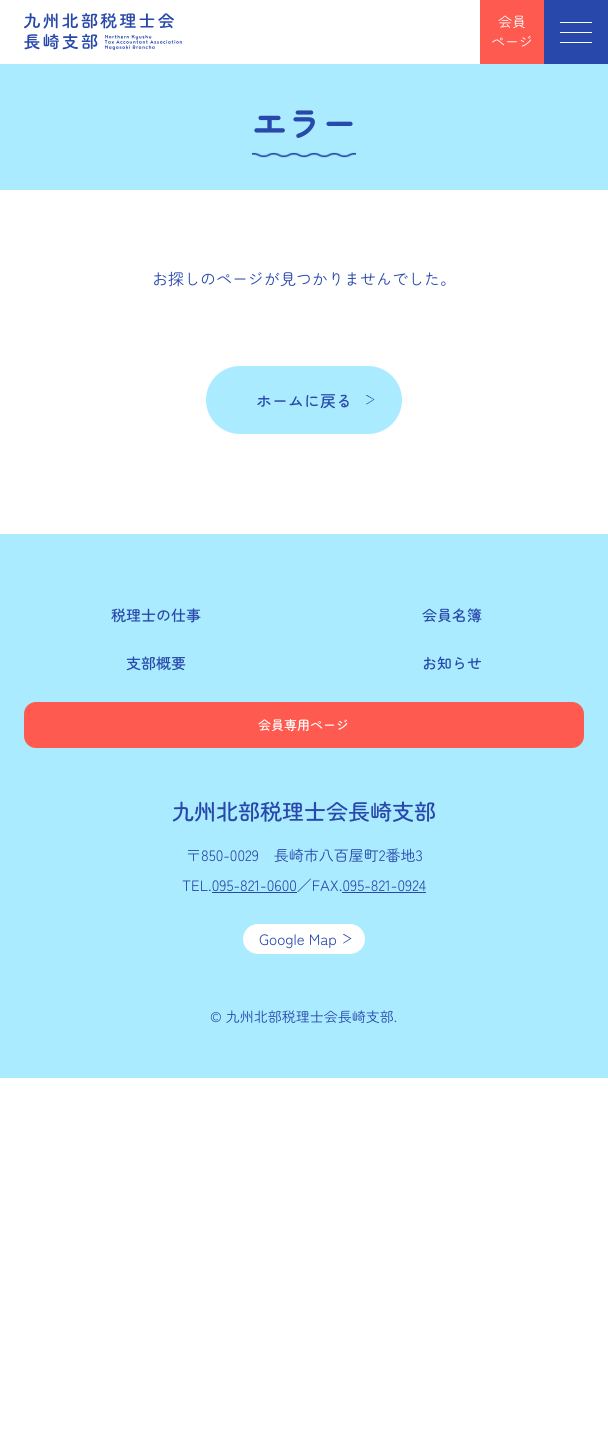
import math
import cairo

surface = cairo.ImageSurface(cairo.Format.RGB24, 608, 1434)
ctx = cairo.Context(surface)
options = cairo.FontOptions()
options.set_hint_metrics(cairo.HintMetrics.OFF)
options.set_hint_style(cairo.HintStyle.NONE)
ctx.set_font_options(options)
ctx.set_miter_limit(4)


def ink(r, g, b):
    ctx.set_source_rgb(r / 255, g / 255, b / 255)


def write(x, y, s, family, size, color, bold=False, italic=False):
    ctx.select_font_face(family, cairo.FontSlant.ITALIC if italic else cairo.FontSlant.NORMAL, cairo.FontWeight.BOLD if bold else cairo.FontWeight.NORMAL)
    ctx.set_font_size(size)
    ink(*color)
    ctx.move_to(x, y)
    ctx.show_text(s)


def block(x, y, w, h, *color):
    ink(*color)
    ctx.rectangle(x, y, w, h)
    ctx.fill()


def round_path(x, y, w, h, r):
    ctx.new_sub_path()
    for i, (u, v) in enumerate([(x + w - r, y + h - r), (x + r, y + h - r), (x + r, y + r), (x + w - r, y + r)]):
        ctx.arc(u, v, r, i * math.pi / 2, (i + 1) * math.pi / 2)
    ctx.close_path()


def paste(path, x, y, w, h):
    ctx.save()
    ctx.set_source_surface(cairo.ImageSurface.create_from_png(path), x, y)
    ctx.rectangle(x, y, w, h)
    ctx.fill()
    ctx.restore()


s1 = dict(family="Zen Maru Gothic", size=14, color=(255, 255, 255))
s2 = dict(family="Zen Maru Gothic", size=35, color=(40, 72, 171), bold=True)
s3 = dict(family="Zen Maru Gothic", size=16, color=(40, 72, 171))
s4 = dict(family="Zen Maru Gothic Medium", size=16, color=(40, 72, 171))
s5 = dict(family="Zen Maru Gothic Medium", size=15, color=(40, 72, 171))
s6 = dict(family="Zen Maru Gothic Medium", size=13, color=(255, 255, 255))
s7 = dict(family="Zen Maru Gothic Medium", size=22, color=(40, 72, 171))
s8 = dict(family="Zen Maru Gothic", size=15, color=(40, 72, 171))
s9 = dict(family="Zen Maru Gothic", size=14, color=(40, 72, 171))

ink(255, 255, 255)
ctx.paint()
paste("pic1.png", 24, 13, 158, 37)
block(480, 0, 64, 64, 255, 90, 80)
write(498, 27, "会員", **s1)
write(491, 47, "ページ", **s1)
block(544, 0, 64, 64, 40, 72, 171)
block(560, 22, 32, 1, 255, 255, 255)
block(560, 32, 32, 1, 255, 255, 255)
block(560, 42, 32, 1, 255, 255, 255)
block(0, 64, 608, 126, 170, 235, 255)
paste("pic2.png", 252, 152, 104, 6)
write(252, 137, "エラー", **s2)
write(152, 285, "お探しのページが見つかりませんでした。", **s3)
ink(170, 235, 255)
round_path(207, 367, 194, 66, 33)
ctx.fill_preserve()
ctx.stroke()
write(256, 407, "ホームに戻る", **s4)
ctx.new_path()
ctx.move_to(366, 395.5)
ctx.line_to(373.5, 399.5)
ctx.line_to(366, 404)
ctx.line_to(366.5, 404.5)
ctx.line_to(374.5, 399.5)
ctx.line_to(367, 395)
ctx.line_to(366.5, 395)
ctx.close_path()
ctx.fill()
block(0, 534, 608, 544, 170, 235, 255)
write(111, 621, "税理士の仕事", **s5)
write(422, 621, "会員名簿", **s5)
write(126, 669, "支部概要", **s5)
write(422, 669, "お知らせ", **s5)
ink(255, 90, 80)
round_path(25, 703, 558, 44, 11)
ctx.fill_preserve()
ctx.stroke()
write(258, 730, "会員専用ページ", **s6)
write(172, 820, "九州北部税理士会長崎支部", **s7)
write(186, 861, "〒850-0029　長崎市八百屋町2番地3", **s8)
write(182, 891, "TEL.095-821-0600／FAX.095-821-0924", **s8)
block(212, 892, 85, 1, 40, 72, 171)
block(342, 892, 84, 1, 40, 72, 171)
ink(255, 255, 255)
round_path(243, 924, 122, 30, 15)
ctx.fill()
write(259, 945, "Google Map", **s8)
ctx.new_path()
ctx.move_to(343, 943)
ctx.line_to(350, 938.5)
ctx.line_to(343, 934.5)
ctx.line_to(343.5, 934)
ctx.line_to(344, 934)
ctx.line_to(351.5, 938.5)
ctx.line_to(343.5, 943.5)
ctx.close_path()
ctx.fill()
write(210, 1022, "© 九州北部税理士会長崎支部.", **s9)
surface.write_to_png("screenshot.png")
